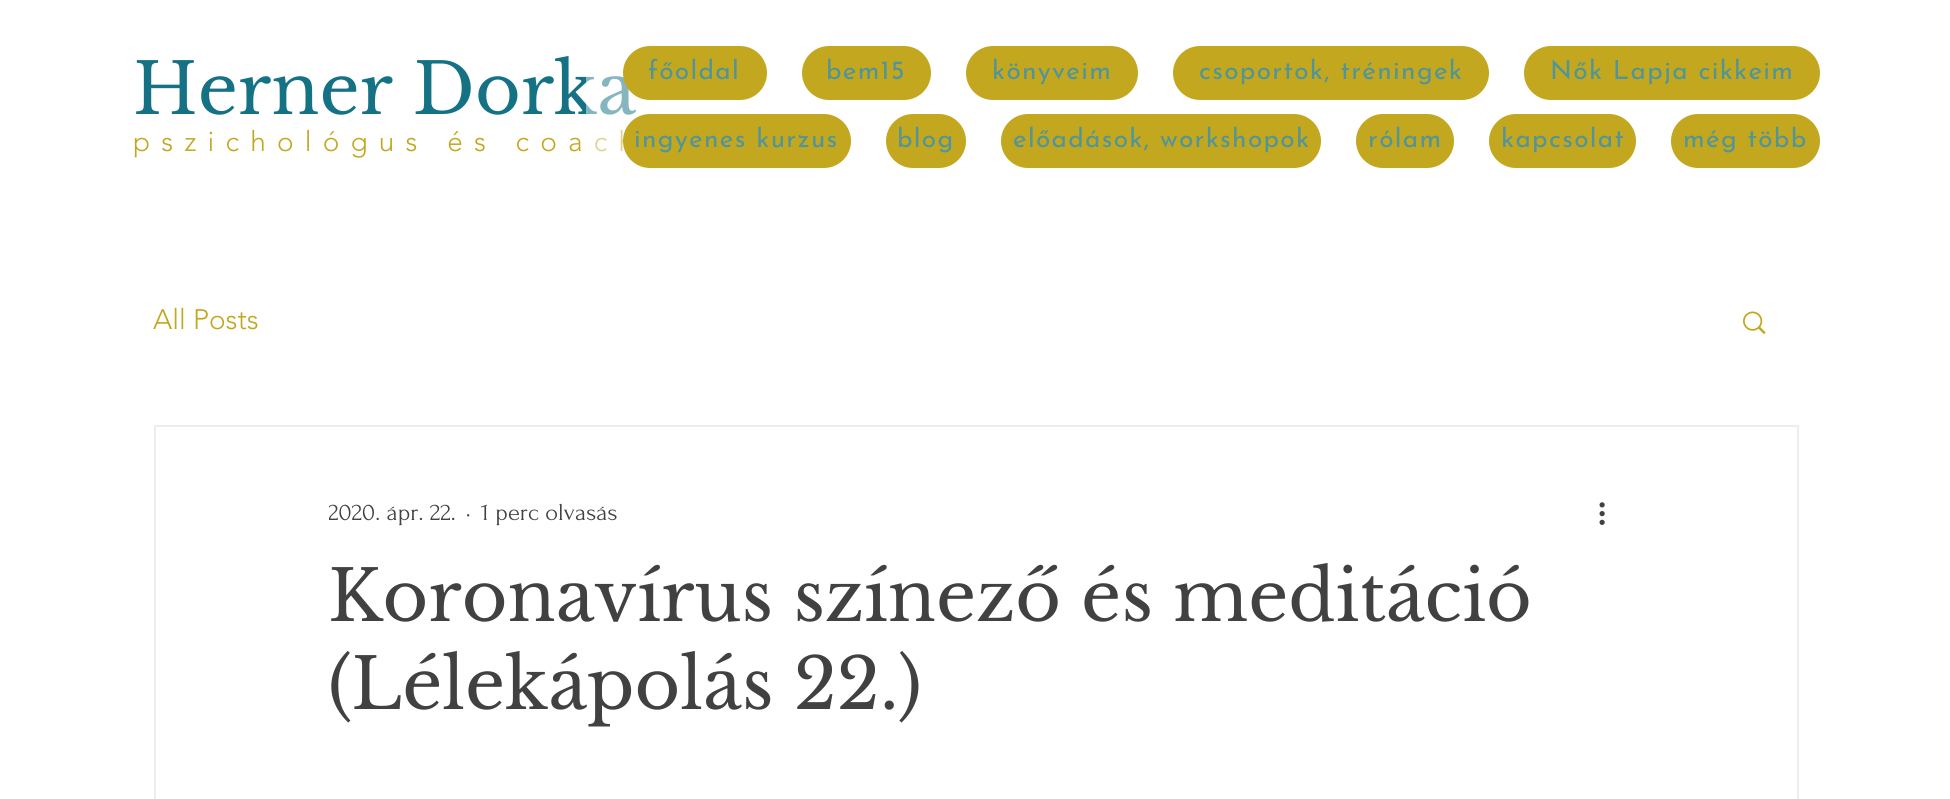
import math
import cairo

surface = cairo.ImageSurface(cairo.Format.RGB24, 1950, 799)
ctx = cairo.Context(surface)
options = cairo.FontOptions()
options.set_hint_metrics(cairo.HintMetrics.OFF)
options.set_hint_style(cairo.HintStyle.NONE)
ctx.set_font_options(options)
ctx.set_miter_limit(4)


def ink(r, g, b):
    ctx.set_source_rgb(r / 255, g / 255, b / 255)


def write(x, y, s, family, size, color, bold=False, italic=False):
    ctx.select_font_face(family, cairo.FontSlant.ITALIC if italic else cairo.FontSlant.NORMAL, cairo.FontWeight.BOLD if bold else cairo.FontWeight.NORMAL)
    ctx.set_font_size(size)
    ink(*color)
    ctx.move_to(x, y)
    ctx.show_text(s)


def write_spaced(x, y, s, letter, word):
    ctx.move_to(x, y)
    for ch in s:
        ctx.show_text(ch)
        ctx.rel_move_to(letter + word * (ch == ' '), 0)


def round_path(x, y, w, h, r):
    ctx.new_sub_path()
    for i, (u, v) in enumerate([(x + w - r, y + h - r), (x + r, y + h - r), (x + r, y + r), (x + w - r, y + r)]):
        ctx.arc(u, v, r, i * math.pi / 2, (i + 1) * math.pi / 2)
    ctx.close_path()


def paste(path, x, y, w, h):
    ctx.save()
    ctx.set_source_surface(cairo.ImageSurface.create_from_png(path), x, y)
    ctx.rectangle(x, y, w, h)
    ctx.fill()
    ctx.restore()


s1 = dict(family="Libre Baskerville", size=70, color=(21, 114, 133))
s2 = dict(family="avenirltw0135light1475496 Light", size=28, color=(194, 167, 31))
s3 = dict(family="Forum", size=24.5, color=(65, 65, 65))
s4 = dict(family="Libre Baskerville", size=70, color=(65, 65, 65))

ink(255, 255, 255)
ctx.paint()
write(133, 114, "Herner Dorka", **s1)
ctx.select_font_face("avenirltw0135light1475496 Light")
ctx.set_font_size(28)
ink(194, 167, 31)
write_spaced(133, 151, "pszichológus és coach", 11.2, 0)
ctx.set_source_rgba(1, 1, 1, 0.48)
ctx.rectangle(586, 76, 51, 76)
ctx.fill()
ink(194, 167, 31)
round_path(623, 46, 144, 54, 27)
ctx.fill()
ctx.select_font_face("Josefin Sans Thin")
ctx.set_font_size(26.25)
ink(80, 149, 153)
write_spaced(648, 79, "főoldal", 1.3, 0)
ink(194, 167, 31)
round_path(802, 46, 129, 54, 27)
ctx.fill()
ink(80, 149, 153)
write_spaced(826, 79, "bem15", 1.3, 0)
ink(194, 167, 31)
round_path(966, 46, 172, 54, 27)
ctx.fill()
ink(80, 149, 153)
write_spaced(992, 79, "könyveim", 1.3, 0)
ink(194, 167, 31)
round_path(1173, 46, 316, 54, 27)
ctx.fill()
ink(80, 149, 153)
write_spaced(1199, 79, "csoportok, tréningek", 1.3, 0)
ink(194, 167, 31)
round_path(1524, 46, 296, 54, 27)
ctx.fill()
ink(80, 149, 153)
write_spaced(1550, 79, "Nők Lapja cikkeim", 1.3, 0)
ink(194, 167, 31)
round_path(623, 114, 228, 54, 27)
ctx.fill()
ink(80, 149, 153)
write_spaced(634, 147, "ingyenes kurzus", 1.3, 0)
ink(194, 167, 31)
round_path(886, 114, 80, 54, 27)
ctx.fill()
ink(80, 149, 153)
write_spaced(897, 147, "blog", 1.3, 0)
ink(194, 167, 31)
round_path(1001, 114, 320, 54, 27)
ctx.fill()
ink(80, 149, 153)
write_spaced(1013, 147, "előadások, workshopok", 1.3, 0)
ink(194, 167, 31)
round_path(1356, 114, 98, 54, 27)
ctx.fill()
ink(80, 149, 153)
write_spaced(1368, 147, "rólam", 1.3, 0)
ink(194, 167, 31)
round_path(1489, 114, 147, 54, 27)
ctx.fill()
ink(80, 149, 153)
write_spaced(1501, 147, "kapcsolat", 1.3, 0)
ink(194, 167, 31)
round_path(1671, 114, 149, 54, 27)
ctx.fill()
ink(80, 149, 153)
write_spaced(1683, 147, "még több", 1.3, 0)
write(153, 329, "All Posts", **s2)
paste("pic1.png", 1743, 311, 23, 23)
ctx.rectangle(155, 426, 1643, 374)
ink(238, 236, 236)
ctx.stroke()
ctx.save()
ctx.rectangle(329, 494, 128, 36)
ctx.clip()
write(328, 520, "2020. ápr. 22.", **s3)
ctx.restore()
write(466, 520, "·", **s3)
write(481, 520, "1 perc olvasás", **s3)
paste("pic2.png", 1599, 502, 6, 23)
write(328, 621, "Koronavírus színező és meditáció", **s4)
write(328, 709, "(Lélekápolás 22.)", **s4)
surface.write_to_png("screenshot.png")
